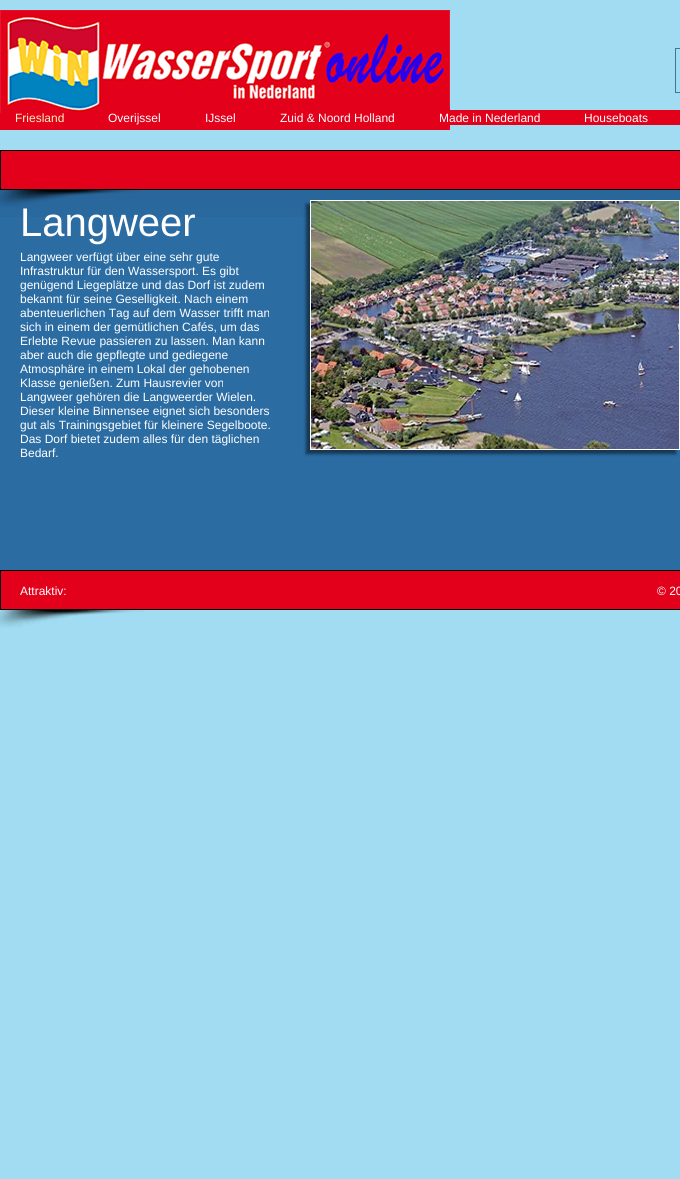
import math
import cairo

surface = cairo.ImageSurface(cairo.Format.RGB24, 680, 1179)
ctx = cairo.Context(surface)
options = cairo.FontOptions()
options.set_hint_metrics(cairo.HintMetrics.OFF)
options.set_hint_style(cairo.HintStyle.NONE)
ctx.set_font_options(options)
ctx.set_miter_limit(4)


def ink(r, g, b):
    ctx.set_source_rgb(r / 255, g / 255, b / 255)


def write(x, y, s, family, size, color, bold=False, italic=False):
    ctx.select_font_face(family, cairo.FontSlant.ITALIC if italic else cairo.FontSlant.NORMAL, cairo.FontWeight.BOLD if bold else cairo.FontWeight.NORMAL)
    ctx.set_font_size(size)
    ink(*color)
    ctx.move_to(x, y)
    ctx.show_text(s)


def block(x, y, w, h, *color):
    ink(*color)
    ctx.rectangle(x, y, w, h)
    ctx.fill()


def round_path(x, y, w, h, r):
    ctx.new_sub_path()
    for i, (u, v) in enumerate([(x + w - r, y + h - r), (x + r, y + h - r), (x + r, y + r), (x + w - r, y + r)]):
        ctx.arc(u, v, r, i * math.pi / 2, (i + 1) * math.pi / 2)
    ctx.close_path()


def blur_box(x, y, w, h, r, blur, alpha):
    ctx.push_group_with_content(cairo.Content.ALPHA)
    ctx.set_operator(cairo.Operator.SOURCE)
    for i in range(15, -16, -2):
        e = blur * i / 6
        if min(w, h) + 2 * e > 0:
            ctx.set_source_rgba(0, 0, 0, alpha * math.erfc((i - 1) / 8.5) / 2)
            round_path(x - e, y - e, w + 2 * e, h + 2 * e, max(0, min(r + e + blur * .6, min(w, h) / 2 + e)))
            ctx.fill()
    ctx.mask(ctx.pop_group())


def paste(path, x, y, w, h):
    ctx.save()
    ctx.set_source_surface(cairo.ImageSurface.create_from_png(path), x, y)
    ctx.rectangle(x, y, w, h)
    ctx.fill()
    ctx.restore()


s1 = dict(family="Liberation Sans", size=12, color=(247, 244, 186))
s2 = dict(family="Liberation Sans", size=12, color=(255, 255, 255))
s3 = dict(family="Liberation Sans", size=40, color=(255, 255, 255))

ink(161, 220, 242)
ctx.paint()
paste("pic1.png", 0, 10, 450, 120)
ctx.rectangle(675.5, 48.5, 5, 44)
ink(64, 119, 140)
ctx.set_line_width(1)
ctx.stroke()
block(450, 110, 230, 15, 226, 0, 26)
write(15, 122, "Friesland", **s1)
write(108, 122, "Overijssel", **s2)
write(205, 122, "IJssel", **s2)
write(280, 122, "Zuid & Noord Holland", **s2)
write(439, 122, "Made in Nederland", **s2)
write(584, 122, "Houseboats", **s2)
block(0, 190, 680, 380, 43, 108, 163)
paste("pic2.png", 0, 190, 680, 27)
ink(226, 0, 26)
ctx.rectangle(0.5, 150.5, 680, 39)
ctx.fill_preserve()
ink(0, 0, 0)
ctx.stroke()
paste("pic3.png", 0, 190, 140, 17)
write(20, 236, "Langweer", **s3)
ink(0, 0, 0)
blur_box(306, 204, 370, 250, 0, 1.5, 0.5)
block(310, 200, 370, 250, 255, 255, 255)
paste("pic4.png", 311, 201, 368, 248)
write(20, 261, "Langweer verfügt über eine sehr gute", **s2)
write(20, 275, "Infrastruktur für den Wassersport. Es gibt", **s2)
write(20, 289, "genügend Liegeplätze und das Dorf ist zudem", **s2)
write(20, 303, "bekannt für seine Geselligkeit. Nach einem", **s2)
write(20, 317, "abenteuerlichen Tag auf dem Wasser trifft man", **s2)
write(20, 331, "sich in einem der gemütlichen Cafés, um das", **s2)
write(20, 345, "Erlebte Revue passieren zu lassen. Man kann", **s2)
write(20, 359, "aber auch die gepflegte und gediegene", **s2)
write(20, 373, "Atmosphäre in einem Lokal der gehobenen", **s2)
write(20, 387, "Klasse genießen. Zum Hausrevier von", **s2)
write(20, 401, "Langweer gehören die Langweerder Wielen.", **s2)
write(20, 415, "Dieser kleine Binnensee eignet sich besonders", **s2)
write(20, 429, "gut als Trainingsgebiet für kleinere Segelboote.", **s2)
write(20, 443, "Das Dorf bietet zudem alles für den täglichen", **s2)
write(20, 457, "Bedarf.", **s2)
ink(226, 0, 26)
ctx.rectangle(0.5, 570.5, 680, 39)
ctx.fill_preserve()
ink(0, 0, 0)
ctx.stroke()
write(20, 595, "Attraktiv:", **s2)
write(657, 595, "© 20", **s2)
paste("pic5.png", 0, 610, 145, 18)
surface.write_to_png("screenshot.png")
